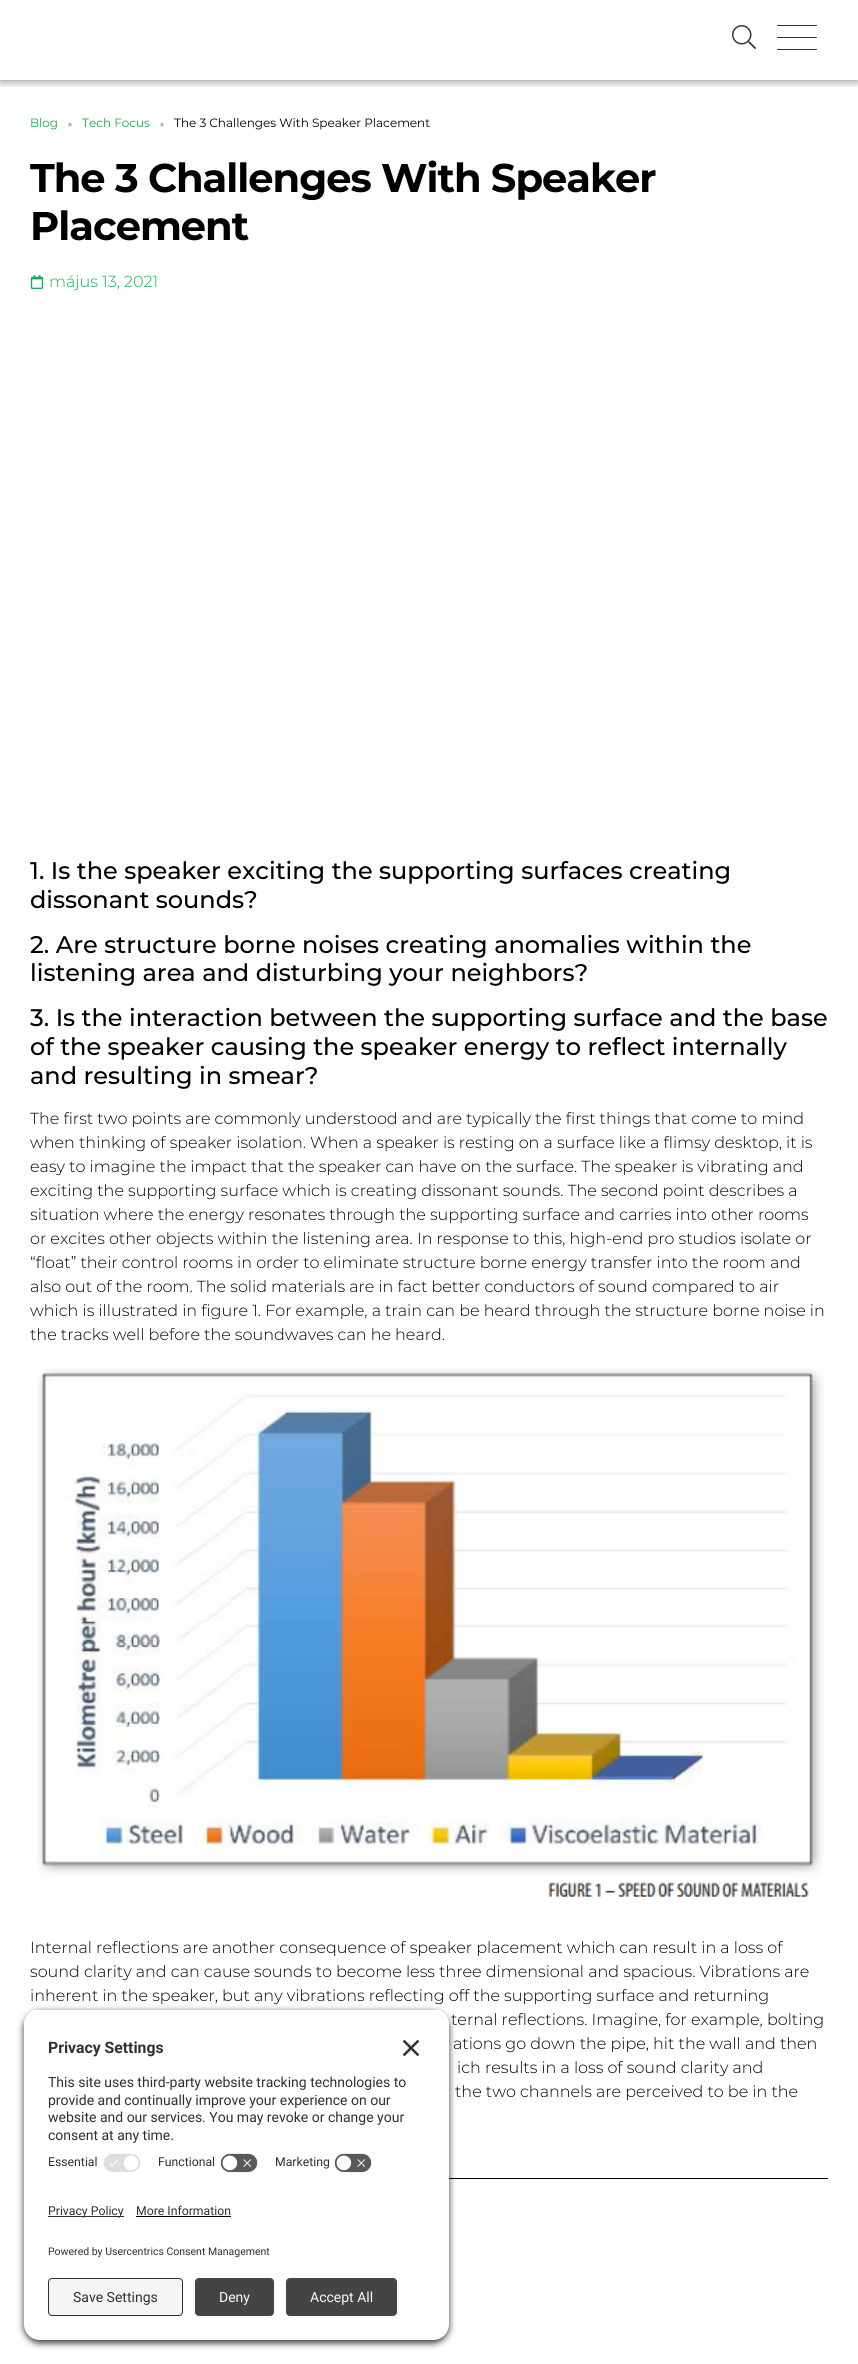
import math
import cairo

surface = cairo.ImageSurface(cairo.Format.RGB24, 858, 2364)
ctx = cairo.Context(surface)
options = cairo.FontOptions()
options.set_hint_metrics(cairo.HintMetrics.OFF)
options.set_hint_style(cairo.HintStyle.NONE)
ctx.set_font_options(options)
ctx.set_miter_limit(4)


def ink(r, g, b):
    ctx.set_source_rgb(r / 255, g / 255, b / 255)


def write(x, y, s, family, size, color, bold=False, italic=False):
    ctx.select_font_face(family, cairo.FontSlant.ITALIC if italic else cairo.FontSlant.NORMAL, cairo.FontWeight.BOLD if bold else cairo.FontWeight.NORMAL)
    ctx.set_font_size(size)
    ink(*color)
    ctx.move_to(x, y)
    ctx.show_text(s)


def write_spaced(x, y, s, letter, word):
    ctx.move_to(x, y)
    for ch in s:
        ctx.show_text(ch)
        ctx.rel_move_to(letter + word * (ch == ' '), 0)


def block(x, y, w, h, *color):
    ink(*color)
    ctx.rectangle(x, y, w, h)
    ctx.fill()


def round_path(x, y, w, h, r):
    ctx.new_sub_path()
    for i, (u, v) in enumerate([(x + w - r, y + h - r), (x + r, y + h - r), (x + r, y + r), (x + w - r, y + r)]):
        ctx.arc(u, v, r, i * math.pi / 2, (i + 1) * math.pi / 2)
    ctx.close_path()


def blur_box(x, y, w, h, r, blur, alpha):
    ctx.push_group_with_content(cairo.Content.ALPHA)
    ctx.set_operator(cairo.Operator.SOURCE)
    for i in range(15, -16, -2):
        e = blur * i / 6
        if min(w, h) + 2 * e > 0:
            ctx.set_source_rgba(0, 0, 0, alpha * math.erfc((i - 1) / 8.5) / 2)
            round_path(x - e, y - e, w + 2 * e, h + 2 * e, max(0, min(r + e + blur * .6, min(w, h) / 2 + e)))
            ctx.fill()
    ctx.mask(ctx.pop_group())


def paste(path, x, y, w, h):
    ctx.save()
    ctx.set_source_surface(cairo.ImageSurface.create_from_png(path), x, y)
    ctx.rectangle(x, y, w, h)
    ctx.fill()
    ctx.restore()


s1 = dict(family="Montserrat", size=12, color=(18, 176, 81))
s2 = dict(family="Montserrat Light", size=9, color=(0, 0, 0))
s3 = dict(family="Montserrat", size=12, color=(0, 0, 0))
s4 = dict(family="Montserrat Light", size=16, color=(18, 176, 81))
s5 = dict(family="Montserrat Medium", size=24, color=(0, 0, 0))
s6 = dict(family="Montserrat Light", size=16, color=(0, 0, 0))
s7 = dict(family="Roboto", size=15.75, color=(48, 48, 48), bold=True)
s8 = dict(family="Roboto", size=14, color=(48, 48, 48))
s9 = dict(family="Roboto", size=12.25, color=(48, 48, 48))
s10 = dict(family="Roboto", size=10.5, color=(48, 48, 48))
s11 = dict(family="Roboto", size=14, color=(250, 250, 250))

ink(255, 255, 255)
ctx.paint()
ctx.save()
ctx.rectangle(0, 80, 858, 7)
ctx.clip()
ink(0, 0, 0)
blur_box(0, 0, 858, 80, 0, 5, 0.3)
blur_box(0, 0, 858, 80, 0, 5, 0.3)
ctx.restore()
paste("pic1.png", 732, 25, 24, 24)
ink(51, 54, 51)
round_path(777, 37, 40, 1, 0.5)
ctx.fill()
round_path(777, 25, 40, 1, 0.5)
ctx.fill()
round_path(777, 49, 40, 1, 0.5)
ctx.fill()
write(30, 127, "Blog", **s1)
write(68, 127, "»", **s2)
write(82, 127, "Tech Focus", **s1)
write(160, 127, "»", **s2)
write(174, 127, "The 3 Challenges With Speaker Placement", **s3)
ctx.select_font_face("Montserrat", cairo.FontSlant.NORMAL, cairo.FontWeight.BOLD)
ctx.set_font_size(40)
write_spaced(30, 192, "The 3 Challenges With Speaker", -1, 0)
write_spaced(30, 240, "Placement", -1, 0)
paste("pic2.png", 30, 275, 14, 14)
write(49, 287, "május 13, 2021", **s4)
write(30, 879, "1. Is the speaker exciting the supporting surfaces creating", **s5)
write(30, 908, "dissonant sounds?", **s5)
write(30, 953, "2. Are structure borne noises creating anomalies within the", **s5)
write(30, 981, "listening area and disturbing your neighbors?", **s5)
write(30, 1026, "3. Is the interaction between the supporting surface and the base", **s5)
write(30, 1055, "of the speaker causing the speaker energy to reflect internally", **s5)
write(30, 1084, "and resulting in smear?", **s5)
write(30, 1124, "The first two points are commonly understood and are typically the first things that come to mind", **s6)
write(30, 1148, "when thinking of speaker isolation. When a speaker is resting on a surface like a flimsy desktop, it is", **s6)
write(30, 1172, "easy to imagine the impact that the speaker can have on the surface. The speaker is vibrating and", **s6)
write(30, 1196, "exciting the supporting surface which is creating dissonant sounds. The second point describes a", **s6)
write(30, 1220, "situation where the energy resonates through the supporting surface and carries into other rooms", **s6)
write(30, 1244, "or excites other objects within the listening area. In response to this, high-end pro studios isolate or", **s6)
write(30, 1268, "“float” their control rooms in order to eliminate structure borne energy transfer into the room and", **s6)
write(30, 1292, "also out of the room. The solid materials are in fact better conductors of sound compared to air", **s6)
write(30, 1316, "which is illustrated in figure 1. For example, a train can be heard through the structure borne noise in", **s6)
write(30, 1340, "the tracks well before the soundwaves can he heard.", **s6)
paste("pic3.png", 37, 1367, 788, 531)
write(30, 1953, "Internal reflections are another consequence of speaker placement which can result in a loss of", **s6)
write(30, 1977, "sound clarity and can cause sounds to become less three dimensional and spacious. Vibrations are", **s6)
write(30, 2001, "inherent in the speaker, but any vibrations reflecting off the supporting surface and returning", **s6)
write(451, 2025, "ternal reflections. Imagine, for example, bolting", **s6)
write(453, 2049, "ations go down the pipe, hit the wall and then", **s6)
write(457, 2073, "ich results in a loss of sound clarity and", **s6)
write(455, 2097, "the two channels are perceived to be in the", **s6)
block(449, 2178, 379, 1, 0, 0, 0)
ink(0, 0, 0)
blur_box(24, 2012, 425, 331, 16, 3.5, 0.8)
ctx.save()
ctx.new_path()
ctx.move_to(40, 2009)
ctx.line_to(433, 2009)
ctx.curve_to(442, 2009, 449, 2016, 449, 2025)
ctx.line_to(449, 2188)
ctx.line_to(24, 2188)
ctx.line_to(24, 2025)
ctx.curve_to(24, 2016, 31, 2009, 40, 2009)
ctx.close_path()
ctx.clip()
block(24, 2010, 425, 178, 255, 255, 255)
block(24, 2010, 425, 138, 255, 255, 255)
ctx.restore()
write(48, 2053, "Privacy Settings", **s7)
paste("pic4.png", 403, 2040, 16, 16)
write(48, 2087, "This site uses third-party website tracking technologies to", **s8)
write(48, 2105, "provide and continually improve your experience on our", **s8)
write(48, 2122, "website and our services. You may revoke or change your", **s8)
write(48, 2140, "consent at any time.", **s8)
write(48, 2166, "Essential", **s9)
paste("pic5.png", 103, 2153, 38, 19)
write(158, 2166, "Functional", **s9)
paste("pic6.png", 220, 2153, 38, 20)
write(275, 2166, "Marketing", **s9)
paste("pic6.png", 334, 2153, 38, 20)
ink(255, 255, 255)
ctx.new_path()
ctx.move_to(24, 2188)
ctx.line_to(449, 2188)
ctx.line_to(449, 2324)
ctx.curve_to(449, 2333, 442, 2340, 433, 2340)
ctx.line_to(40, 2340)
ctx.curve_to(31, 2340, 24, 2333, 24, 2324)
ctx.close_path()
ctx.fill()
block(48, 2216, 76, 1, 48, 48, 48)
write(48, 2215, "Privacy Policy", **s9)
write(136, 2215, "More Information", **s9)
block(136, 2216, 95, 1, 0, 0, 0)
write(48, 2255, "Powered by Usercentrics Consent Management", **s10)
ink(245, 245, 245)
round_path(48.5, 2278.5, 134, 37, 3.5)
ctx.fill_preserve()
ink(48, 48, 48)
ctx.set_line_width(1)
ctx.stroke()
write(73, 2302, "Save Settings", **s8)
ink(68, 68, 68)
round_path(195, 2278, 79, 38, 4)
ctx.fill()
write(219, 2302, "Deny", **s11)
ink(68, 68, 68)
round_path(286, 2278, 111, 38, 4)
ctx.fill()
write(310, 2302, "Accept All", **s11)
surface.write_to_png("screenshot.png")
